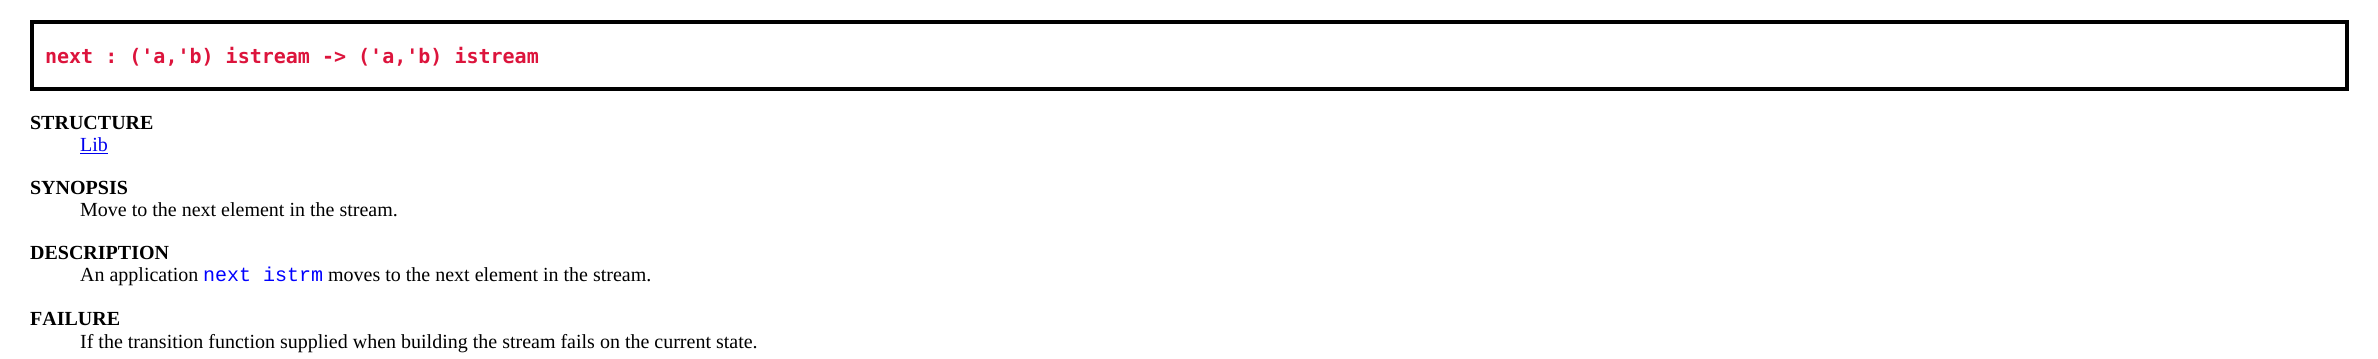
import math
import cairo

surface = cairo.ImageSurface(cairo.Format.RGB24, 2378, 359)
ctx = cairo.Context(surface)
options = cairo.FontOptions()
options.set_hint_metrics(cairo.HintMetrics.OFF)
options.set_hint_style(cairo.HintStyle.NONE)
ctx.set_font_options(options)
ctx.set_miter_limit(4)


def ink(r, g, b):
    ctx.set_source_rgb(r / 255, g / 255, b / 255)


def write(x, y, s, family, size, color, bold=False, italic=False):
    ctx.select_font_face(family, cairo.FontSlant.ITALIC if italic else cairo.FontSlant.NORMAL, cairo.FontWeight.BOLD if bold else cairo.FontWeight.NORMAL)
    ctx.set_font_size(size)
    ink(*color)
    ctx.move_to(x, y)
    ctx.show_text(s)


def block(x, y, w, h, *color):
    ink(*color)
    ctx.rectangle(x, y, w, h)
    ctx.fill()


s1 = dict(family="DejaVu Sans Mono", size=20, color=(220, 20, 60), bold=True)
s2 = dict(family="Liberation Serif", size=20, color=(0, 0, 0), bold=True)
s3 = dict(family="Liberation Serif", size=20, color=(0, 0, 238))
s4 = dict(family="Liberation Serif", size=20, color=(0, 0, 0))
s5 = dict(family="Liberation Mono", size=20, color=(0, 0, 255))

ink(255, 255, 255)
ctx.paint()
ctx.rectangle(32, 22, 2315, 67)
ink(0, 0, 0)
ctx.set_line_width(4)
ctx.stroke()
write(45, 63, "next : ('a,'b) istream -> ('a,'b) istream", **s1)
write(30, 129, "STRUCTURE", **s2)
write(80, 151, "Lib", **s3)
block(80, 153, 28, 1, 0, 0, 238)
write(30, 194, "SYNOPSIS", **s2)
write(80, 216, "Move to the next element in the stream.", **s4)
write(30, 259, "DESCRIPTION", **s2)
write(80, 281, "An application", **s4)
write(203, 281, "next istrm", **s5)
write(328, 281, "moves to the next element in the stream.", **s4)
write(30, 325, "FAILURE", **s2)
write(80, 348, "If the transition function supplied when building the stream fails on the current state.", **s4)
surface.write_to_png("screenshot.png")
